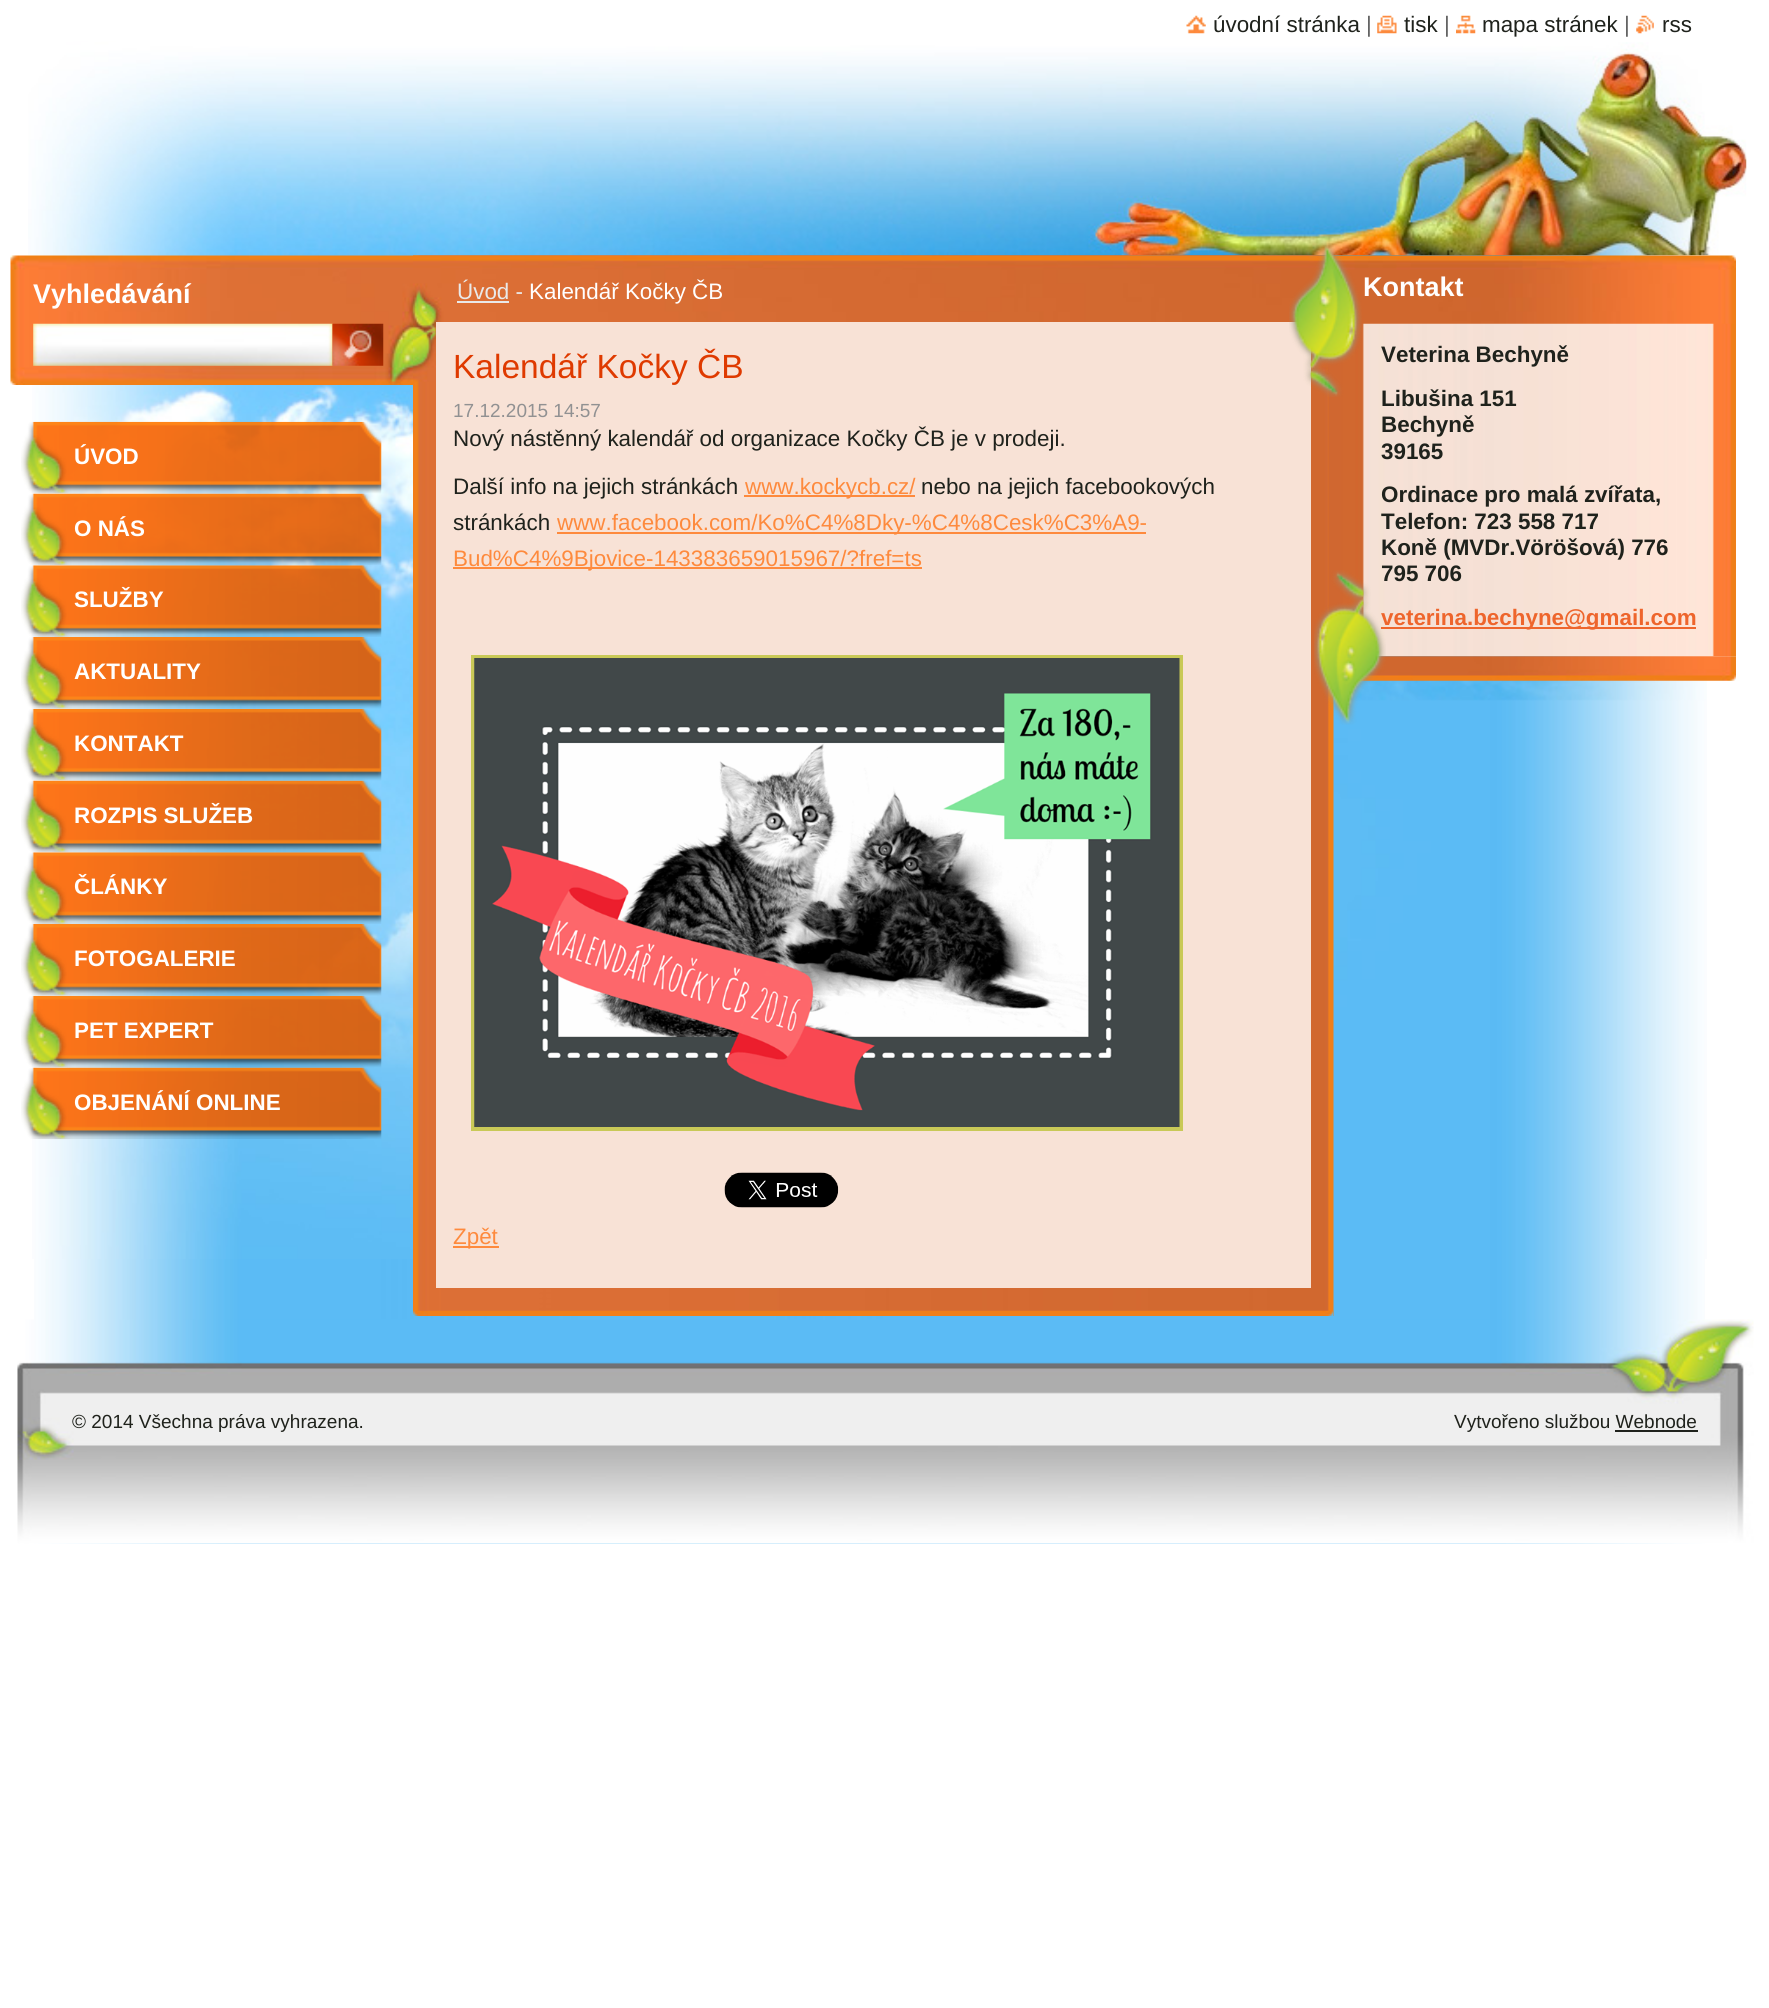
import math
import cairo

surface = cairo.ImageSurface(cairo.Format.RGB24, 1769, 2008)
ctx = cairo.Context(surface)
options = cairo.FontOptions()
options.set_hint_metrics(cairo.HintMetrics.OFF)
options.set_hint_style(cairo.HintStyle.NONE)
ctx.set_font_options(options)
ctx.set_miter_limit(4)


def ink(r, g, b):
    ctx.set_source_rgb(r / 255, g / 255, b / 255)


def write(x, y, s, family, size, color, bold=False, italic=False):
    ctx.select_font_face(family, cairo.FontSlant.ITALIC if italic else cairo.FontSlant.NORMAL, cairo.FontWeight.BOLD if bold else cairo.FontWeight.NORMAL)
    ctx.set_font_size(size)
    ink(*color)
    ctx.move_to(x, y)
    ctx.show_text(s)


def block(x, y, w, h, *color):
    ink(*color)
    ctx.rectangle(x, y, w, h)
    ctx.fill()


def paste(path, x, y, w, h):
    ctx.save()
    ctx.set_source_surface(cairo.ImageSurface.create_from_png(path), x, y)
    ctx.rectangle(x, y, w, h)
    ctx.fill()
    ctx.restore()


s1 = dict(family="Liberation Sans", size=22.4, color=(31, 34, 28))
s2 = dict(family="Liberation Sans", size=22.4, color=(100, 100, 100))
s3 = dict(family="Liberation Sans", size=27, color=(255, 255, 255), bold=True)
s4 = dict(family="Liberation Sans", size=22.4, color=(233, 233, 233))
s5 = dict(family="Liberation Sans", size=22.4, color=(255, 255, 255))
s6 = dict(family="Liberation Sans", size=33.5, color=(223, 58, 0))
s7 = dict(family="Liberation Sans", size=19, color=(145, 145, 146))
s8 = dict(family="Liberation Sans", size=22.4, color=(254, 138, 61))
s9 = dict(family="Liberation Sans", size=22.4, color=(31, 34, 28), bold=True)
s10 = dict(family="Liberation Sans", size=22.4, color=(238, 101, 44), bold=True)
s11 = dict(family="Liberation Sans", size=22.4, color=(255, 255, 255), bold=True)
s12 = dict(family="Liberation Sans", size=19, color=(31, 34, 28))

ink(255, 255, 255)
ctx.paint()
paste("pic1.png", 34, 1259, 1671, 285)
paste("pic2.png", 32, 0, 1675, 1259)
paste("pic3.png", 1186, 15, 20, 19)
write(1213, 32, "úvodní stránka", **s1)
write(1366, 32, "|", **s2)
paste("pic4.png", 1377, 15, 20, 19)
write(1404, 32, "tisk", **s1)
write(1444, 32, "|", **s2)
paste("pic5.png", 1456, 15, 20, 19)
write(1482, 32, "mapa stránek", **s1)
write(1624, 32, "|", **s2)
paste("pic6.png", 1636, 15, 18, 19)
write(1662, 32, "rss", **s1)
paste("pic7.png", 28, 42, 1719, 214)
paste("pic8.png", 10, 255, 1726, 130)
write(33, 303, "Vyhledávání", **s3)
paste("pic9.png", 33, 323, 300, 43)
paste("pic10.png", 332, 323, 52, 43)
paste("pic11.png", 413, 255, 921, 1061)
paste("pic12.png", 413, 255, 921, 127)
write(457, 299, "Úvod -", **s4)
block(457, 301, 52, 2, 233, 233, 233)
write(529, 299, "Kalendář Kočky ČB", **s5)
block(436, 322, 875, 966, 248, 226, 214)
write(453, 378, "Kalendář Kočky ČB", **s6)
write(453, 417, "17.12.2015 14:57", **s7)
write(453, 446, "Nový nástěnný kalendář od organizace Kočky ČB je v prodeji.", **s1)
write(453, 494, "Další info na jejich stránkách", **s1)
block(744, 495, 171, 2, 254, 138, 61)
write(745, 494, "www.kockycb.cz/", **s8)
write(921, 494, "nebo na jejich facebookových", **s1)
write(453, 530, "stránkách", **s1)
block(557, 532, 589, 2, 254, 138, 61)
write(557, 530, "www.facebook.com/Ko%C4%8Dky-%C4%8Cesk%C3%A9-", **s8)
block(453, 567, 469, 2, 254, 138, 61)
write(453, 566, "Bud%C4%9Bjovice-143383659015967/?fref=ts", **s8)
ctx.rectangle(473, 657, 708, 472)
ink(201, 201, 87)
ctx.set_line_width(4)
ctx.stroke()
paste("pic13.png", 474, 658, 706, 469)
paste("pic14.png", 724, 1172, 115, 36)
block(453, 1246, 46, 2, 254, 138, 61)
write(453, 1244, "Zpět", **s8)
paste("pic15.png", 413, 1310, 921, 6)
paste("pic17.png", 1328, 323, 408, 334)
paste("pic16.png", 1289, 243, 73, 154)
write(1363, 296, "Kontakt", **s3)
write(1381, 362, "Veterina Bechyně", **s9)
write(1381, 406, "Libušina 151", **s9)
write(1381, 432, "Bechyně", **s9)
write(1381, 459, "39165", **s9)
write(1381, 502, "Ordinace pro malá zvířata,", **s9)
write(1381, 529, "Telefon: 723 558 717", **s9)
write(1381, 555, "Koně (MVDr.Vöröšová) 776", **s9)
write(1381, 581, "795 706", **s9)
block(1381, 627, 315, 2, 238, 101, 44)
write(1381, 625, "veterina.bechyne@gmail.com", **s10)
paste("pic19.png", 1342, 656, 394, 25)
paste("pic18.png", 1314, 570, 72, 155)
paste("pic20.png", 21, 421, 361, 73)
write(74, 464, "ÚVOD", **s11)
paste("pic21.png", 21, 493, 361, 73)
write(74, 536, "O NÁS", **s11)
paste("pic22.png", 21, 565, 361, 72)
write(74, 607, "SLUŽBY", **s11)
paste("pic23.png", 21, 637, 361, 72)
write(74, 679, "AKTUALITY", **s11)
paste("pic24.png", 21, 708, 361, 73)
write(74, 751, "KONTAKT", **s11)
paste("pic25.png", 21, 780, 361, 73)
write(74, 823, "ROZPIS SLUŽEB", **s11)
paste("pic26.png", 21, 852, 361, 72)
write(74, 894, "ČLÁNKY", **s11)
paste("pic27.png", 21, 924, 361, 72)
write(74, 966, "FOTOGALERIE", **s11)
paste("pic28.png", 21, 995, 361, 73)
write(74, 1038, "PET EXPERT", **s11)
paste("pic29.png", 21, 1067, 361, 73)
write(74, 1110, "OBJENÁNÍ ONLINE", **s11)
paste("pic30.png", 17, 1319, 1737, 225)
write(72, 1428, "© 2014 Všechna práva vyhrazena.", **s12)
write(1454, 1428, "Vytvořeno službou Webnode", **s12)
block(1615, 1430, 83, 2, 31, 34, 28)
surface.write_to_png("screenshot.png")
